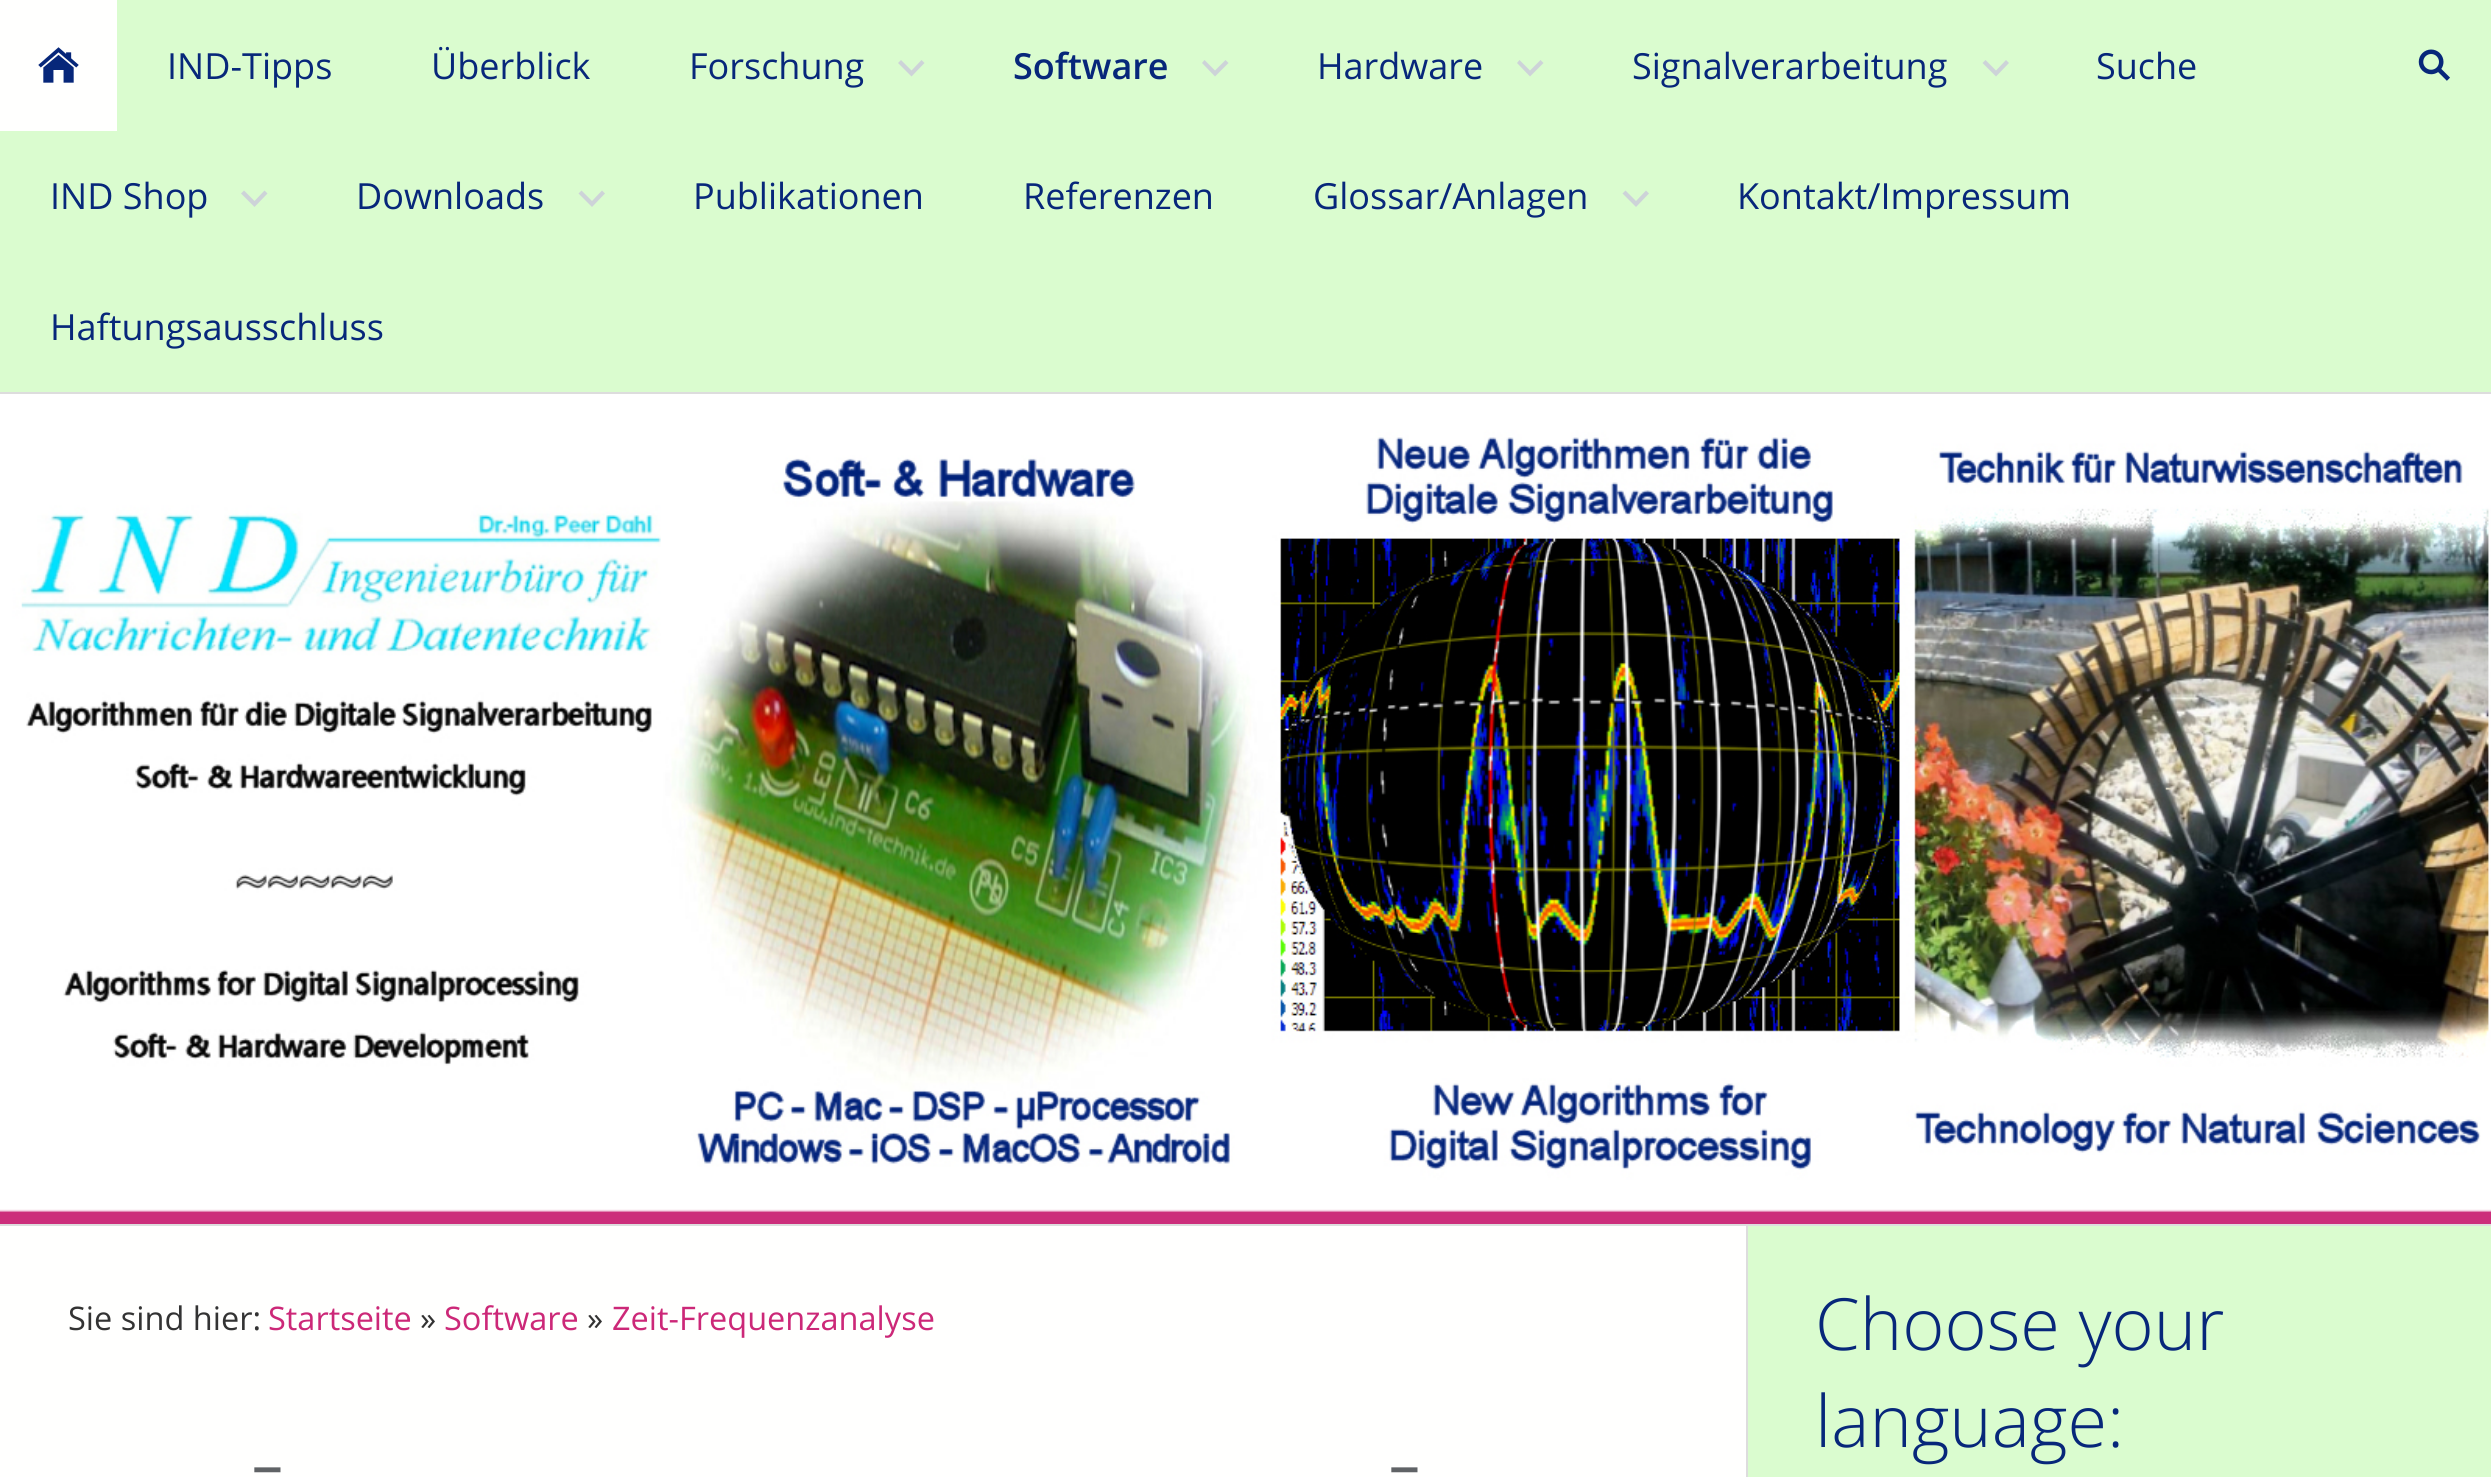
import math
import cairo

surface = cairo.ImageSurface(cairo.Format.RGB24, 2491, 1477)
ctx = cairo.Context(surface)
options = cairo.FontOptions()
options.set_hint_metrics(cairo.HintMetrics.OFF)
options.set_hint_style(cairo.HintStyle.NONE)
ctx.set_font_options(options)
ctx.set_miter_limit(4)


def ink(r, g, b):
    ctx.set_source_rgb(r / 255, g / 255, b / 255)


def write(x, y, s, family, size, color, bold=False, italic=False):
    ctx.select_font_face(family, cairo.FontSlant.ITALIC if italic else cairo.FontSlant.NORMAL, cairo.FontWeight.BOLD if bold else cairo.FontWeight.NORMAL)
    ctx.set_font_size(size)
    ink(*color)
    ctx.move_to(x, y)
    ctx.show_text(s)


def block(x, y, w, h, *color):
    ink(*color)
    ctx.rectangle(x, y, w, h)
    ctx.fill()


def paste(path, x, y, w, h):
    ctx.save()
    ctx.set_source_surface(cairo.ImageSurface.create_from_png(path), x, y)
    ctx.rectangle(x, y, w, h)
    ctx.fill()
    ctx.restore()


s1 = dict(family="Open Sans", size=36, color=(7, 39, 122))
s2 = dict(family="Open Sans SemiBold", size=36, color=(7, 39, 122))
s3 = dict(family="Open Sans", size=32.5, color=(51, 51, 51))
s4 = dict(family="Open Sans", size=32.5, color=(204, 40, 120))
s5 = dict(family="Open Sans Light", size=108, color=(96, 99, 102))
s6 = dict(family="Open Sans Light", size=72, color=(7, 39, 122))

ink(255, 255, 254)
ctx.paint()
block(0, 0, 2491, 392, 218, 252, 207)
block(0, 0, 117, 131, 255, 255, 254)
paste("pic1.png", 38, 47, 41, 36)
write(167, 79, "IND-Tipps", **s1)
write(431, 79, "Überblick", **s1)
ink(205, 211, 216)
ctx.new_path()
ctx.move_to(901, 60)
ctx.line_to(911.5, 70.5)
ctx.line_to(921.5, 60)
ctx.line_to(924.5, 63)
ctx.line_to(911.5, 76.5)
ctx.line_to(898, 63)
ctx.close_path()
ctx.fill()
write(689, 79, "Forschung", **s1)
ink(205, 211, 216)
ctx.new_path()
ctx.move_to(1204.5, 60)
ctx.line_to(1215, 70.5)
ctx.line_to(1225.5, 60)
ctx.line_to(1228.5, 63)
ctx.line_to(1215, 76.5)
ctx.line_to(1202, 63)
ctx.close_path()
ctx.fill()
write(1013, 79, "Software", **s2)
ink(205, 211, 216)
ctx.new_path()
ctx.move_to(1519.5, 60)
ctx.line_to(1530, 70.5)
ctx.line_to(1540.5, 60)
ctx.line_to(1543.5, 63)
ctx.line_to(1530, 76.5)
ctx.line_to(1517, 63)
ctx.close_path()
ctx.fill()
write(1317, 79, "Hardware", **s1)
ink(205, 211, 216)
ctx.new_path()
ctx.move_to(1985.5, 60)
ctx.line_to(1996, 70.5)
ctx.line_to(2006, 60)
ctx.line_to(2009, 63)
ctx.line_to(1996, 76.5)
ctx.line_to(1982.5, 63)
ctx.close_path()
ctx.fill()
write(1632, 79, "Signalverarbeitung", **s1)
write(2096, 79, "Suche", **s1)
paste("pic2.png", 2418, 49, 32, 32)
ink(205, 211, 216)
ctx.new_path()
ctx.move_to(244, 190.5)
ctx.line_to(254.5, 201)
ctx.line_to(264.5, 190.5)
ctx.line_to(267.5, 193.5)
ctx.line_to(254.5, 207)
ctx.line_to(241, 193.5)
ctx.close_path()
ctx.fill()
write(50, 209, "IND Shop", **s1)
ink(205, 211, 216)
ctx.new_path()
ctx.move_to(581.5, 190.5)
ctx.line_to(592, 201)
ctx.line_to(602, 190.5)
ctx.line_to(605, 193.5)
ctx.line_to(592, 207)
ctx.line_to(578.5, 193.5)
ctx.close_path()
ctx.fill()
write(356, 209, "Downloads", **s1)
write(693, 209, "Publikationen", **s1)
write(1023, 209, "Referenzen", **s1)
ink(205, 211, 216)
ctx.new_path()
ctx.move_to(1625.5, 190.5)
ctx.line_to(1636, 201)
ctx.line_to(1646, 190.5)
ctx.line_to(1649, 193.5)
ctx.line_to(1636, 207)
ctx.line_to(1622.5, 193.5)
ctx.close_path()
ctx.fill()
write(1313, 209, "Glossar/Anlagen", **s1)
write(1737, 209, "Kontakt/Impressum", **s1)
write(50, 340, "Haftungsausschluss", **s1)
block(0, 392, 2491, 2, 221, 221, 221)
paste("pic3.png", 0, 394, 2491, 830)
block(0, 1224, 2491, 2, 221, 221, 221)
write(68, 1330, "Sie sind hier:", **s3)
write(268, 1330, "Startseite", **s4)
write(420, 1330, "»", **s3)
write(444, 1330, "Software", **s4)
write(587, 1330, "»", **s3)
write(612, 1330, "Zeit-Frequenzanalyse", **s4)
write(250, 1499, "-", **s5)
write(1387, 1499, "-", **s5)
block(1748, 1226, 743, 251, 218, 252, 207)
block(1746, 1226, 2, 251, 221, 221, 221)
write(1815, 1350, "Choose your", **s6)
write(1815, 1447, "language:", **s6)
surface.write_to_png("screenshot.png")
